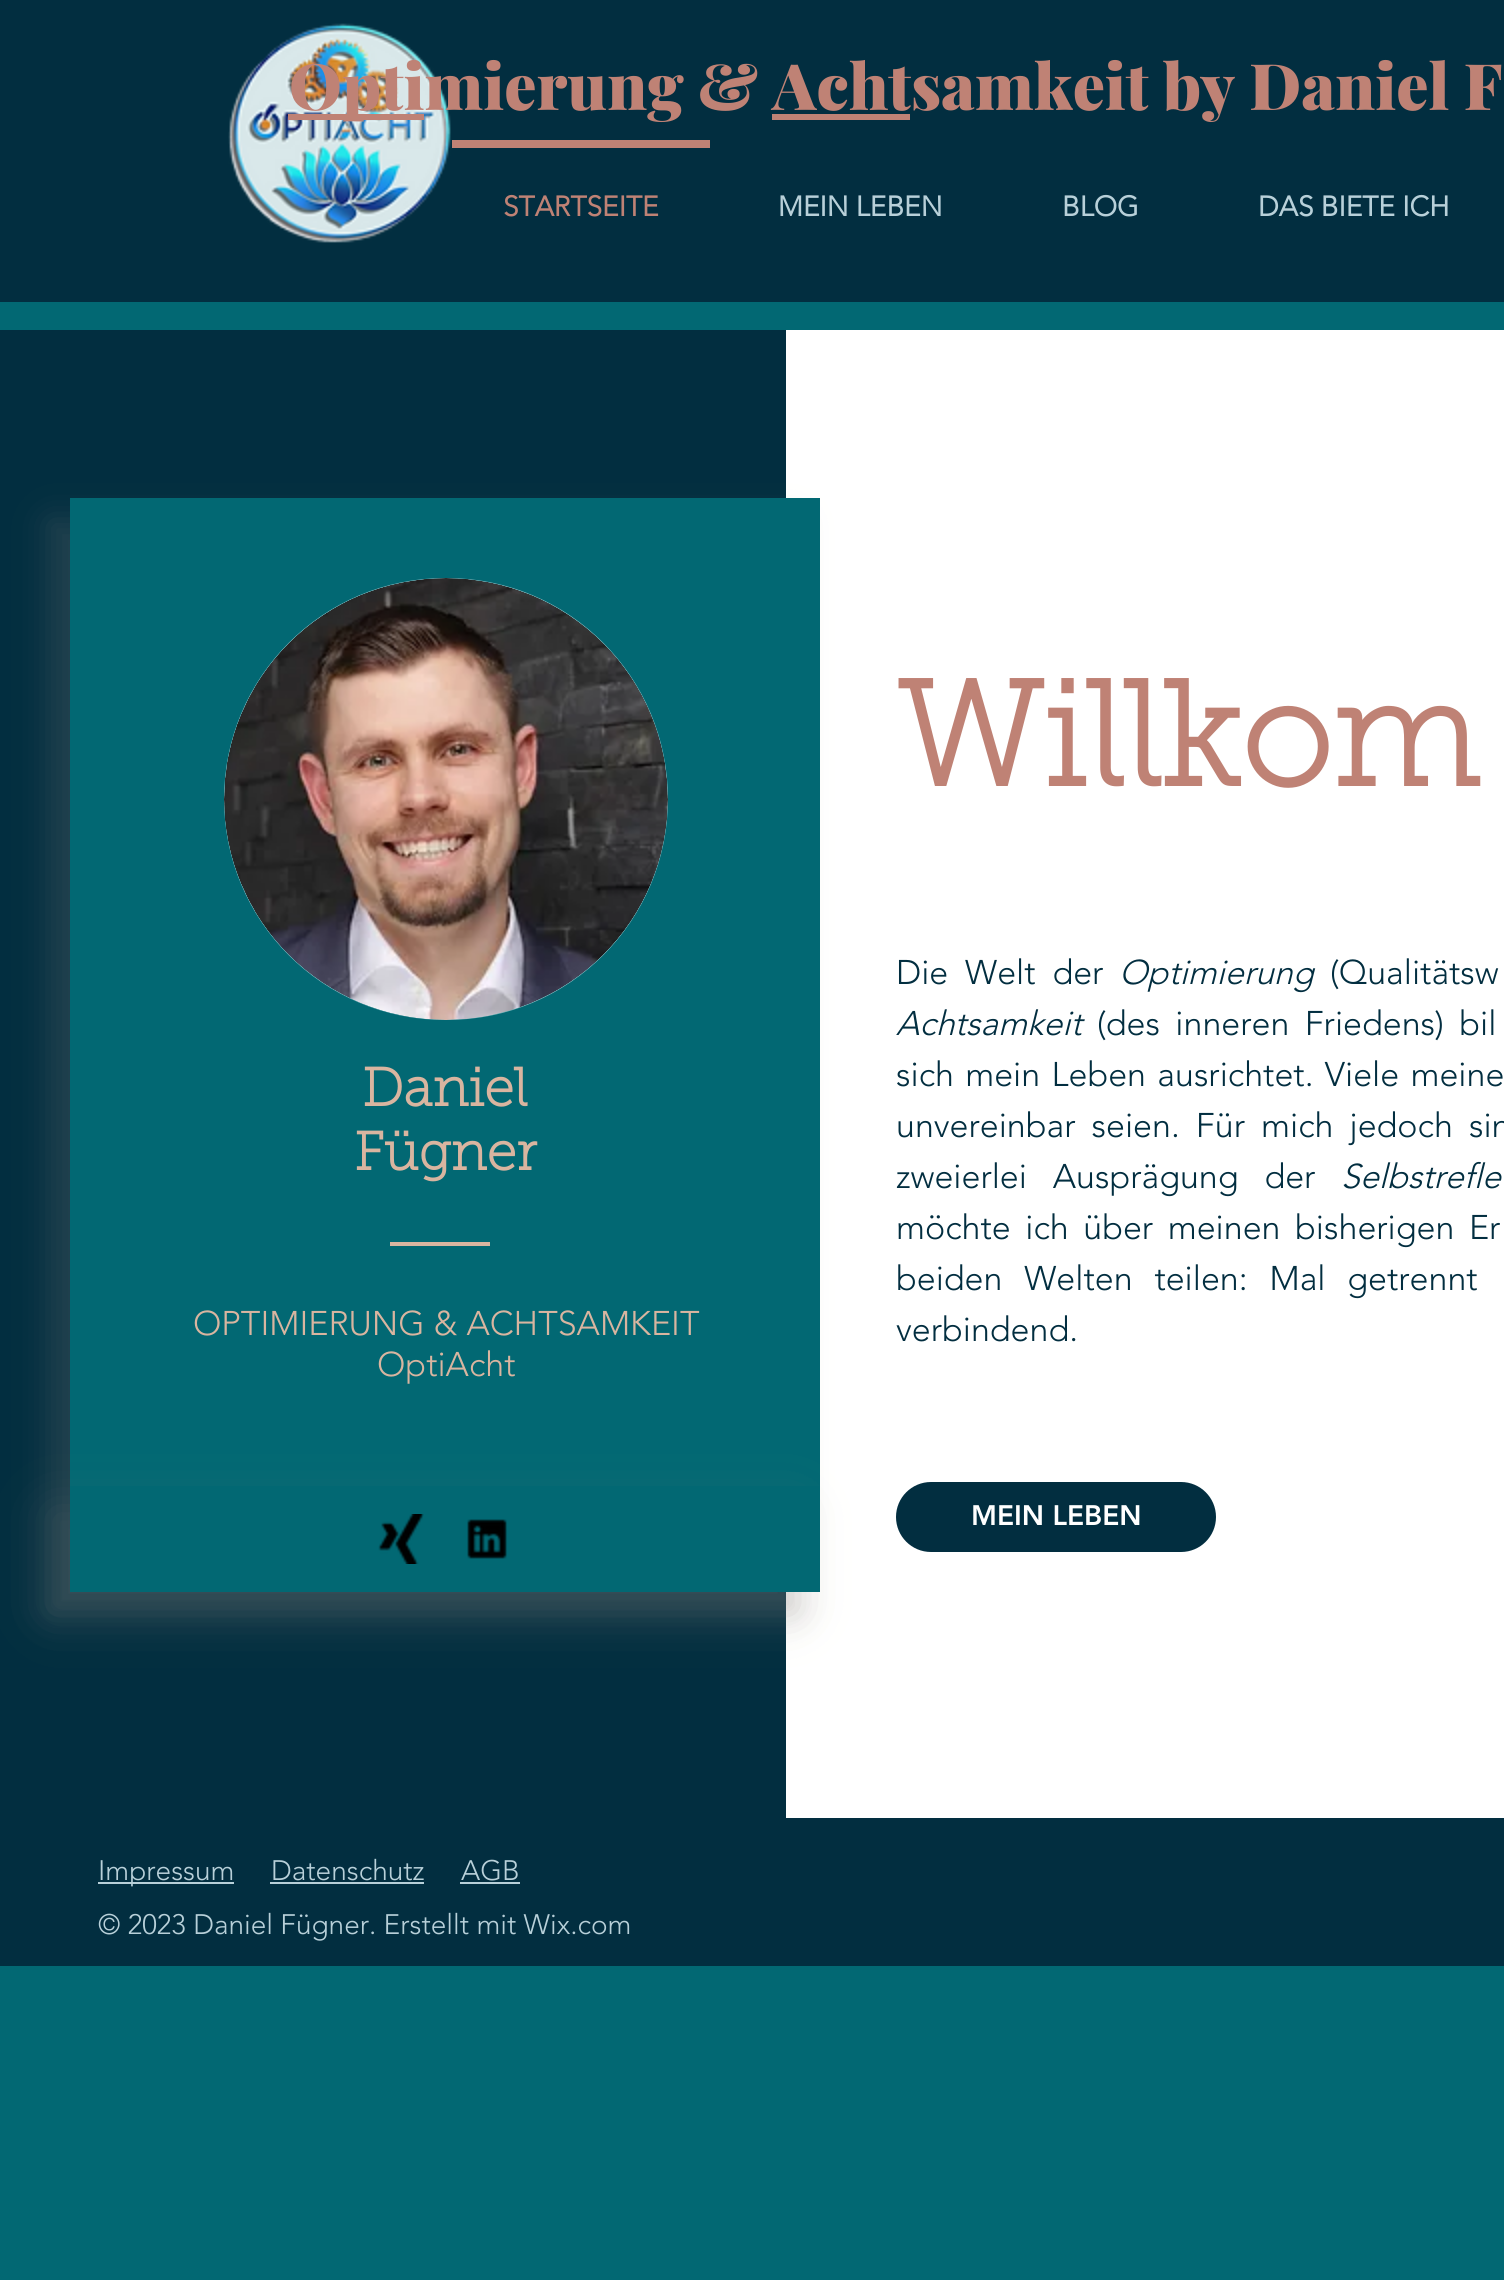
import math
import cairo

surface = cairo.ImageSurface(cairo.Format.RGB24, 1504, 2280)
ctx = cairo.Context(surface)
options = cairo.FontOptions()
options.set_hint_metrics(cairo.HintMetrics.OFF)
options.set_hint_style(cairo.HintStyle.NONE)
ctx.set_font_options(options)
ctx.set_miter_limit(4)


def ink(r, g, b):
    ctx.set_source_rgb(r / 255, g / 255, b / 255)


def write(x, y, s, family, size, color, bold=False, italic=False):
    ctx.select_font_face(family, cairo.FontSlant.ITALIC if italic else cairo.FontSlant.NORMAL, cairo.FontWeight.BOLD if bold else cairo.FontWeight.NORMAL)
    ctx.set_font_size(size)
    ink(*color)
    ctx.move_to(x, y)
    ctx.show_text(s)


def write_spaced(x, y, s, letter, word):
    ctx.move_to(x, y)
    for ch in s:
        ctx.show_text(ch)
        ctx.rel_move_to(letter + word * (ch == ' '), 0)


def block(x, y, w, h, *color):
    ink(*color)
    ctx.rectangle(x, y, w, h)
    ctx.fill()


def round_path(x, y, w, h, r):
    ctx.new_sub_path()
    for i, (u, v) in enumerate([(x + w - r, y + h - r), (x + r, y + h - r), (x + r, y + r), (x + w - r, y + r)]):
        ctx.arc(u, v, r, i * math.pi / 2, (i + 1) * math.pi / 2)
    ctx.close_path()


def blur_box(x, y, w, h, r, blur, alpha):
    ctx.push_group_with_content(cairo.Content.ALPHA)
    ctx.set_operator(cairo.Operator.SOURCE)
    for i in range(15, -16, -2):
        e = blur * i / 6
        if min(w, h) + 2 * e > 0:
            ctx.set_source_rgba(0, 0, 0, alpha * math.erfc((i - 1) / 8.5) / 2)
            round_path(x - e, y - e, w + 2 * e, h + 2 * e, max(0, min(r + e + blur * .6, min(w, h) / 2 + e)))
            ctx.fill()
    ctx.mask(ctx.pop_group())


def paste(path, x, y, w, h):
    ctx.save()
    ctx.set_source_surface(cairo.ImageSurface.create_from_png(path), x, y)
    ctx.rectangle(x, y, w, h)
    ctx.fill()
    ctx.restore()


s1 = dict(family="Playfair Display Black", size=64, color=(191, 130, 117))
s2 = dict(family="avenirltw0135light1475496", size=28, color=(191, 130, 117), bold=True)
s3 = dict(family="avenirltw0135light1475496", size=28, color=(184, 208, 217), bold=True)
s4 = dict(family="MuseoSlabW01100", size=148, color=(191, 130, 117), bold=True)
s5 = dict(family="MuseoSlabW01100", size=54, color=(217, 181, 160), bold=True)
s6 = dict(family="avenirltw0135light1475496 Light", size=34, color=(217, 181, 160))
s7 = dict(family="avenirltw0135light1475496 Light", size=34, color=(2, 46, 64), italic=True)
s8 = dict(family="avenirltw0135light1475496 Light", size=34, color=(2, 46, 64))
s9 = dict(family="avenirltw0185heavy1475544 Black", size=28, color=(255, 255, 255))
s10 = dict(family="avenirltw0135light1475496 Light", size=28, color=(184, 208, 217))

ink(2, 104, 115)
ctx.paint()
block(0, 0, 1504, 302, 2, 46, 64)
paste("pic1.png", 228, 23, 223, 220)
block(288, 114, 136, 6, 191, 130, 117)
write(289, 110, "Optimierung & Achtsamkeit by Daniel F", **s1)
block(772, 114, 138, 6, 191, 130, 117)
block(452, 140, 258, 8, 191, 130, 117)
write(503, 216, "STARTSEITE", **s2)
write(778, 216, "MEIN LEBEN", **s3)
write(1062, 216, "BLOG", **s3)
write(1258, 216, "DAS BIETE ICH", **s3)
block(0, 330, 786, 1488, 2, 46, 64)
block(786, 330, 718, 1488, 255, 255, 255)
write(896, 786, "Willkom", **s4)
ink(138, 131, 124)
blur_box(48, 520, 750, 1094, 0, 17, 0.23)
block(70, 498, 750, 1094, 2, 104, 115)
ink(124, 179, 185)
round_path(224, 578, 444, 442, 221)
ctx.fill()
paste("pic2.png", 224, 578, 444, 442)
write(362, 1106, "Daniel", **s5)
write(354, 1170, "Fügner", **s5)
block(390, 1242, 100, 4, 217, 181, 160)
write(193, 1335, "OPTIMIERUNG & ACHTSAMKEIT", **s6)
write(377, 1376, "OptiAcht", **s6)
ctx.save()
ctx.set_fill_rule(cairo.FillRule.EVEN_ODD)
ctx.new_path()
ctx.move_to(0, 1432)
ctx.line_to(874, 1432)
ctx.line_to(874, 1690)
ctx.line_to(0, 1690)
ctx.close_path()
ctx.move_to(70, 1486)
ctx.line_to(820, 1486)
ctx.line_to(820, 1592)
ctx.line_to(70, 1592)
ctx.close_path()
ctx.clip()
ink(138, 131, 124)
blur_box(48, 1508, 750, 106, 0, 25, 0.23)
ctx.restore()
paste("pic3.png", 378, 1514, 46, 50)
paste("pic4.png", 467, 1519, 40, 40)
ink(2, 46, 64)
write_spaced(896, 984, "Die Welt der", 0, 8)
write(1119, 984, "Optimierung", **s7)
ctx.select_font_face("avenirltw0135light1475496 Light")
write_spaced(1330, 984, "(Qualitätsw", 0, 8)
write(896, 1035, "Achtsamkeit", **s7)
ctx.select_font_face("avenirltw0135light1475496 Light")
write_spaced(1097, 1035, "(des inneren Friedens) bil", 0, 6.5)
write_spaced(896, 1086, "sich mein Leben ausrichtet. Viele meine", 0, 2.5)
write_spaced(896, 1137, "unvereinbar seien. Für mich jedoch sin", 0, 7.25)
write_spaced(896, 1188, "zweierlei Ausprägung der", 0, 17)
write(1341, 1188, "Selbstrefle", **s7)
ctx.select_font_face("avenirltw0135light1475496 Light")
write_spaced(896, 1239, "möchte ich über meinen bisherigen Er", 0, 5.75)
write_spaced(896, 1290, "beiden Welten teilen: Mal getrennt", 0, 13)
write(896, 1341, "verbindend.", **s8)
round_path(896, 1482, 320, 70, 35)
ctx.fill()
write(971, 1525, "MEIN LEBEN", **s9)
block(0, 1818, 1504, 148, 2, 46, 64)
block(98, 1882, 136, 2, 184, 208, 217)
write(98, 1880, "Impressum", **s10)
write(271, 1880, "Datenschutz", **s10)
block(270, 1882, 154, 2, 184, 208, 217)
write(461, 1880, "AGB", **s10)
block(460, 1882, 60, 2, 184, 208, 217)
write(98, 1934, "© 2023 Daniel Fügner. Erstellt mit Wix.com", **s10)
surface.write_to_png("screenshot.png")
